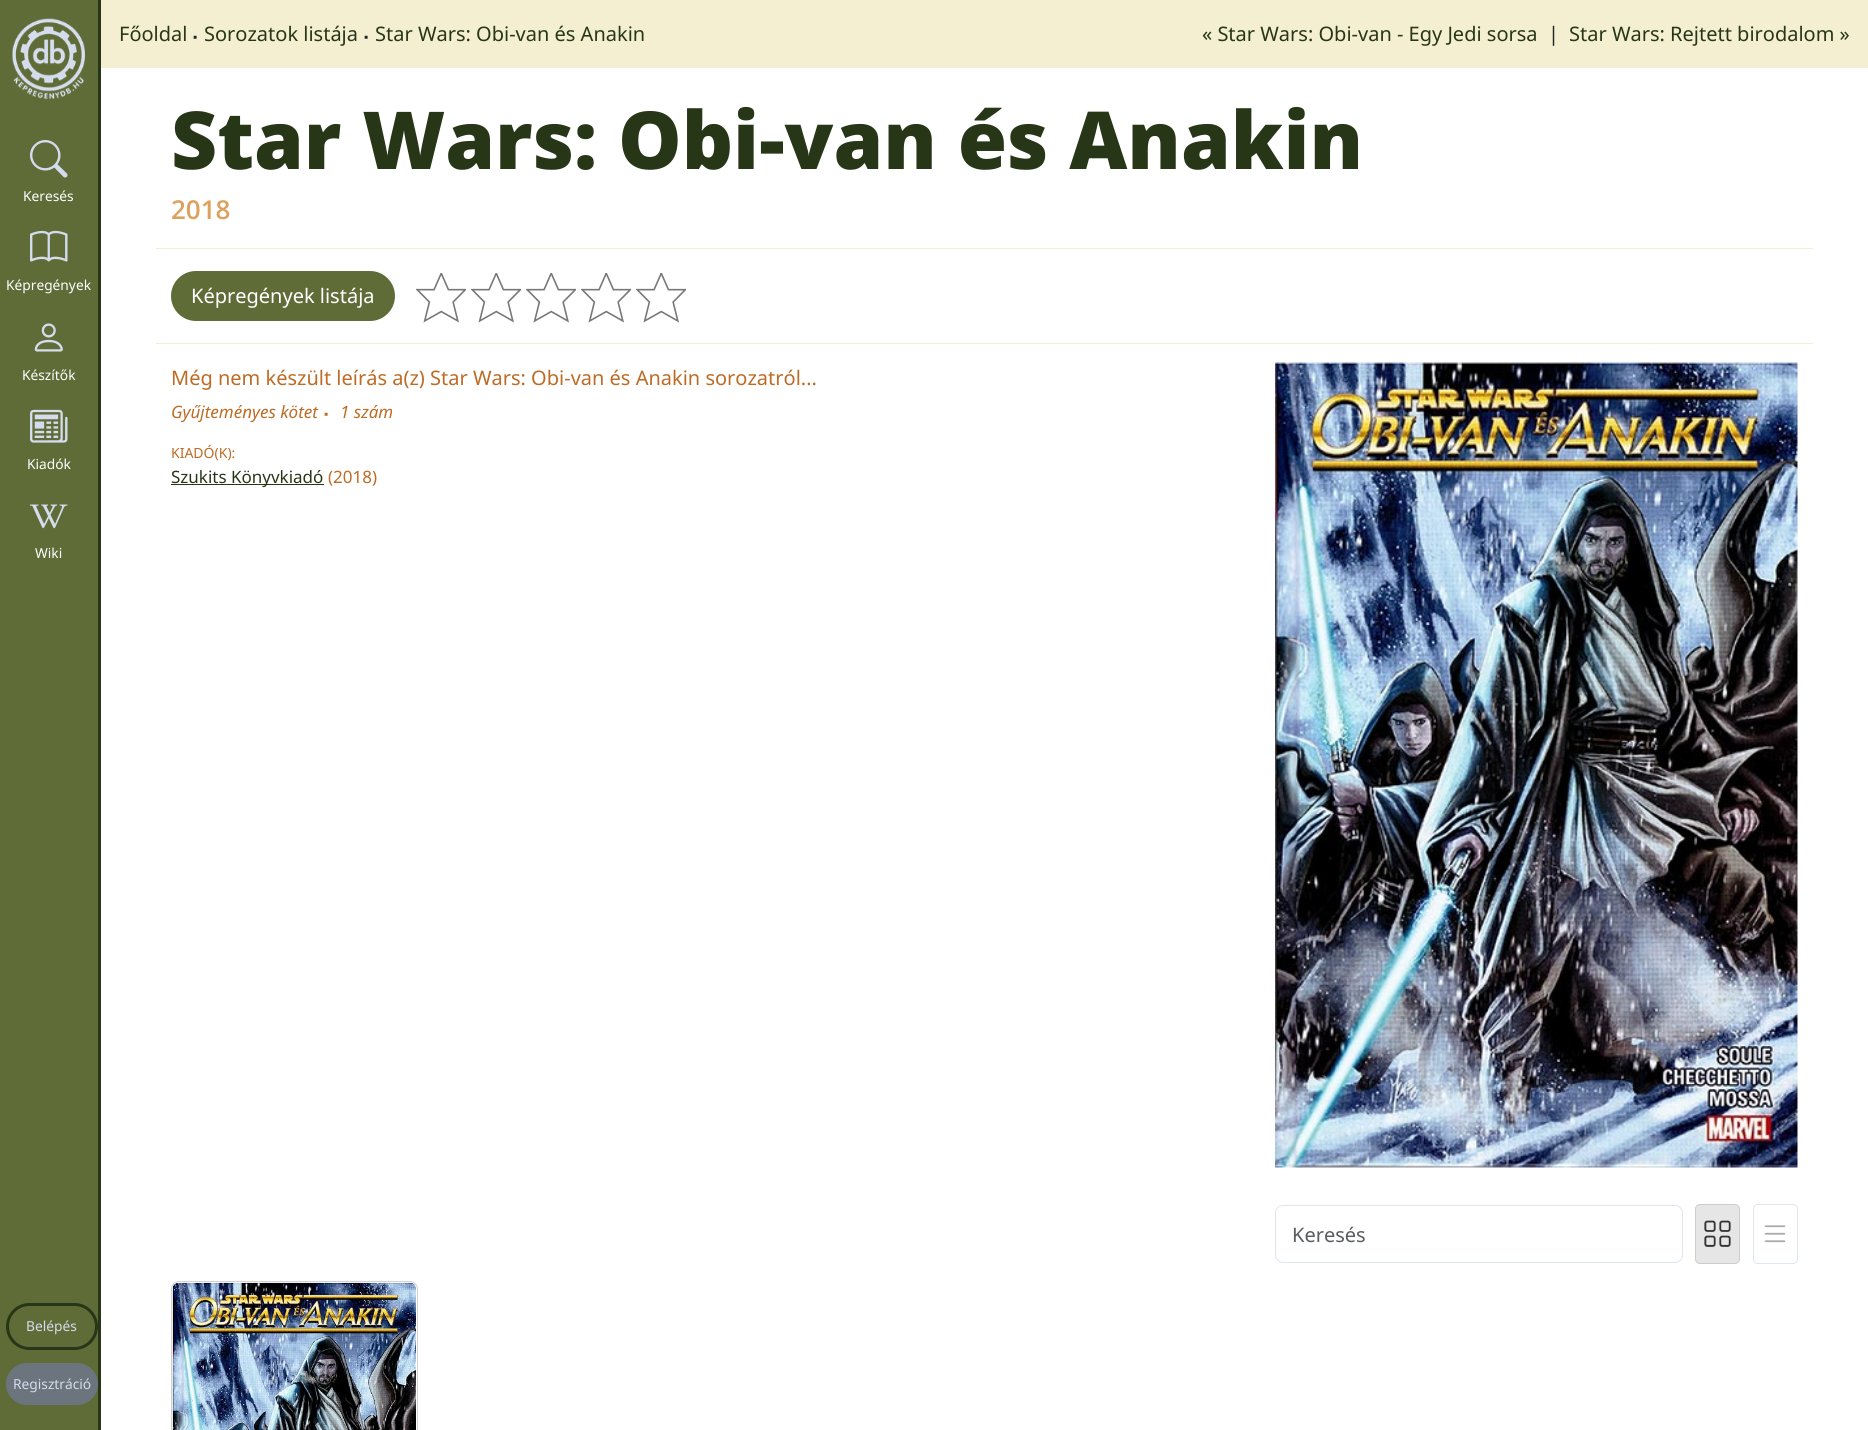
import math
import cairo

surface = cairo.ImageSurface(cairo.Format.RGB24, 1868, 1430)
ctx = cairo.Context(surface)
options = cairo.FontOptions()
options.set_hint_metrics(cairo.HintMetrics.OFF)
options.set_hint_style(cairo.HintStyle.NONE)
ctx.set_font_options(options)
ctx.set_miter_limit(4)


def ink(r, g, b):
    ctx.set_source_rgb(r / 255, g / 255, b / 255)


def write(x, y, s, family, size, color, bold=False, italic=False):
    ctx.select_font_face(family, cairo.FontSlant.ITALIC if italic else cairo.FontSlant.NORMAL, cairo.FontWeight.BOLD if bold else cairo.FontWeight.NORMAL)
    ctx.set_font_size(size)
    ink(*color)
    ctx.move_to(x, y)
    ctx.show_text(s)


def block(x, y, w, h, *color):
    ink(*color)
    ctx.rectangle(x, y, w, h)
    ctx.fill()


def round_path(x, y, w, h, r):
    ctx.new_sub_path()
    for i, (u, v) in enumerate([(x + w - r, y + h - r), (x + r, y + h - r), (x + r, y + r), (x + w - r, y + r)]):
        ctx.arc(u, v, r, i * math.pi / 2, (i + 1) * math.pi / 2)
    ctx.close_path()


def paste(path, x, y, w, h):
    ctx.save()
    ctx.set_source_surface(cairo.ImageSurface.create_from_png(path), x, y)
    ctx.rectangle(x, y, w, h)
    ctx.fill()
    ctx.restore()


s1 = dict(family="Noto Sans", size=13.75, color=(255, 255, 255))
s2 = dict(family="Noto Sans", size=13.75, color=(213, 220, 237))
s3 = dict(family="Noto Sans", size=20, color=(40, 54, 24))
s4 = dict(family="Liberation Sans", size=12, color=(33, 37, 41))
s5 = dict(family="Noto Sans", size=20, color=(33, 37, 41))
s6 = dict(family="Open Sans ExtraBold", size=80, color=(40, 54, 24))
s7 = dict(family="Open Sans SemiBold", size=26, color=(221, 161, 94))
s8 = dict(family="Noto Sans", size=20, color=(255, 255, 255))
s9 = dict(family="Noto Sans", size=20, color=(188, 108, 37))
s10 = dict(family="Noto Sans", size=17, color=(188, 108, 37), italic=True)
s11 = dict(family="Liberation Sans", size=12, color=(188, 108, 37), italic=True)
s12 = dict(family="Noto Sans", size=14, color=(188, 108, 37))
s13 = dict(family="Noto Sans", size=17, color=(40, 54, 24))
s14 = dict(family="Noto Sans", size=17, color=(188, 108, 37))
s15 = dict(family="Noto Sans", size=20, color=(89, 92, 95))

ink(255, 255, 255)
ctx.paint()
block(0, 0, 98, 1430, 96, 108, 56)
block(98, 0, 3, 1430, 40, 54, 24)
paste("pic1.png", 12, 18, 73, 81)
paste("pic2.png", 30, 140, 38, 38)
write(23, 201, "Keresés", **s1)
paste("pic3.png", 30, 230, 38, 32)
write(6, 290, "Képregények", **s1)
paste("pic4.png", 34, 323, 29, 29)
write(22, 380, "Készítők", **s1)
paste("pic5.png", 30, 409, 38, 34)
write(27, 469, "Kiadók", **s1)
paste("pic6.png", 30, 504, 38, 25)
write(35, 558, "Wiki", **s1)
round_path(7.5, 1304.5, 89, 44, 22)
ink(40, 54, 24)
ctx.set_line_width(3)
ctx.stroke()
write(26, 1331, "Belépés", **s2)
ink(108, 117, 125)
round_path(6, 1363, 92, 42, 21)
ctx.fill()
write(13, 1389, "Regisztráció", **s2)
block(101, 0, 1767, 68, 244, 239, 209)
write(119, 41, "Főoldal", **s3)
write(193, 41, "▪", **s4)
write(204, 41, "Sorozatok listája", **s3)
write(364, 41, "▪", **s4)
write(375, 41, "Star Wars: Obi-van és Anakin", **s3)
write(1202, 41, "« Star Wars: Obi-van - Egy Jedi sorsa", **s3)
write(1548, 41, "|", **s5)
write(1569, 41, "Star Wars: Rejtett birodalom »", **s3)
write(171, 169, "Star Wars: Obi-van és Anakin", **s6)
write(171, 219, "2018", **s7)
block(156, 248, 1657, 1, 244, 239, 209)
block(156, 343, 1657, 1, 244, 239, 209)
ink(96, 108, 56)
round_path(171, 271, 224, 50, 25)
ctx.fill()
write(191, 303, "Képregények listája", **s8)
paste("pic7.png", 416, 273, 50, 50)
paste("pic7.png", 471, 273, 50, 50)
paste("pic7.png", 526, 273, 50, 50)
paste("pic7.png", 581, 273, 50, 50)
paste("pic7.png", 636, 273, 50, 50)
write(171, 385, "Még nem készült leírás a(z) Star Wars: Obi-van és Anakin sorozatról...", **s9)
write(171, 418, "Gyűjteményes kötet", **s10)
write(324, 418, "▪", **s11)
write(340, 418, "1 szám", **s10)
write(171, 458, "KIADÓ(K):", **s12)
block(171, 484, 153, 1, 40, 54, 24)
write(171, 483, "Szukits Könyvkiadó", **s13)
write(328, 483, "(2018)", **s14)
paste("pic8.png", 1275, 362, 523, 806)
round_path(1275.5, 1205.5, 407, 57, 7.5)
ink(222, 229, 237)
ctx.set_line_width(1)
ctx.stroke()
write(1292, 1242, "Keresés", **s15)
ink(230, 230, 230)
round_path(1695.5, 1204.5, 44, 59, 4.5)
ctx.fill_preserve()
ink(204, 204, 204)
ctx.stroke()
paste("pic9.png", 1704, 1220, 27, 27)
round_path(1753.5, 1204.5, 44, 59, 4.5)
ink(222, 229, 237)
ctx.stroke()
paste("pic10.png", 1764, 1225, 22, 18)
round_path(171.5, 1281.5, 246, 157, 7.5)
ink(210, 210, 210)
ctx.stroke()
paste("pic11.png", 172, 1282, 244, 148)
surface.write_to_png("screenshot.png")
